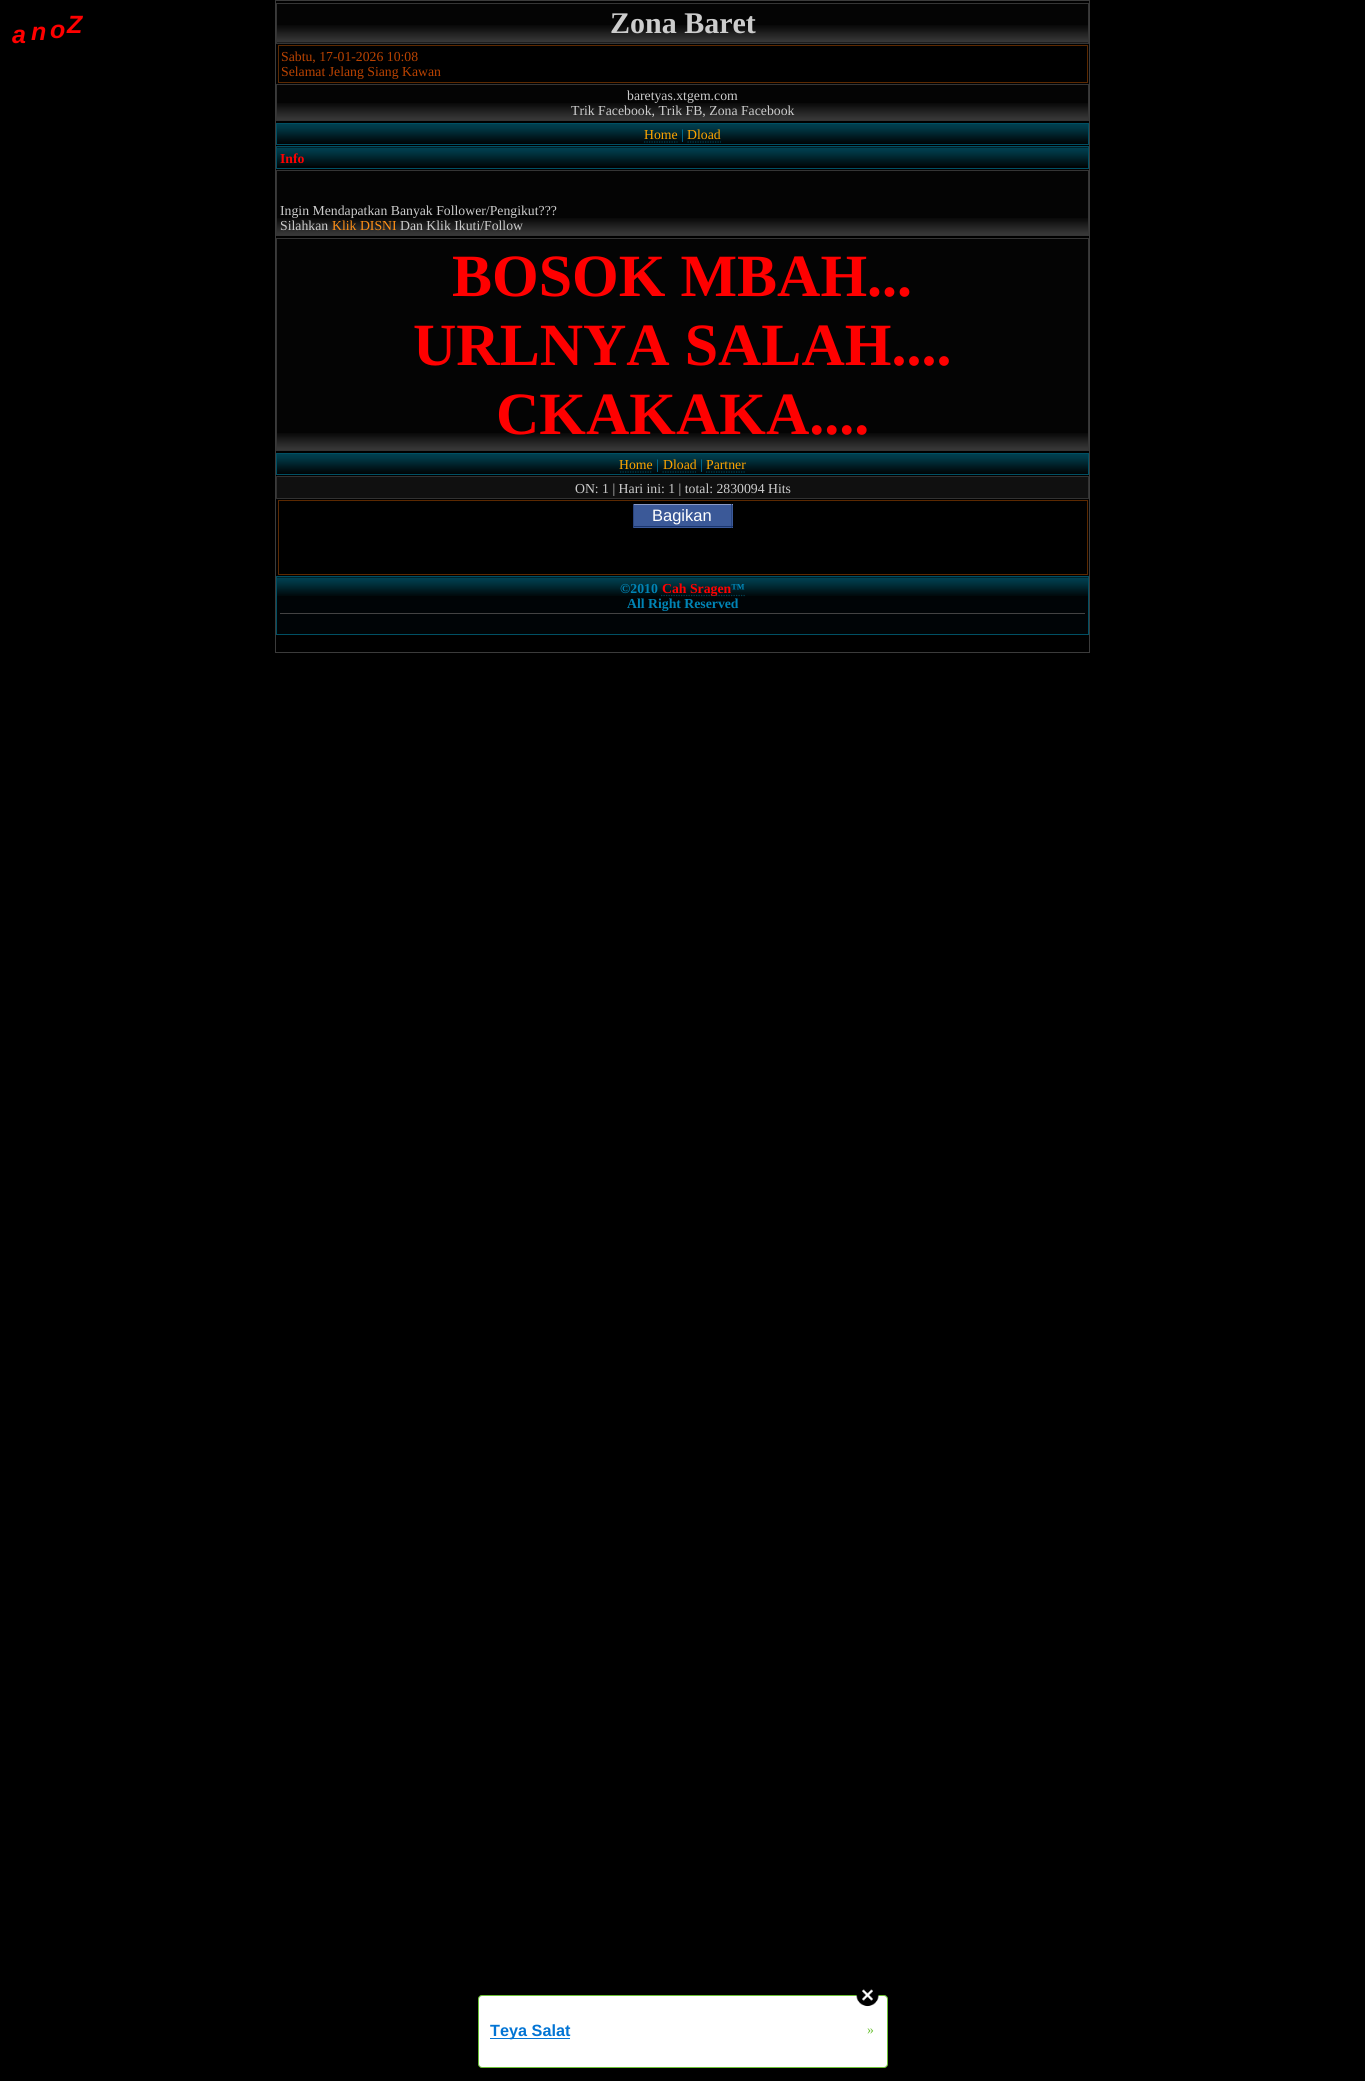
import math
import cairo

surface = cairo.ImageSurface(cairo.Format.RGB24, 1365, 2081)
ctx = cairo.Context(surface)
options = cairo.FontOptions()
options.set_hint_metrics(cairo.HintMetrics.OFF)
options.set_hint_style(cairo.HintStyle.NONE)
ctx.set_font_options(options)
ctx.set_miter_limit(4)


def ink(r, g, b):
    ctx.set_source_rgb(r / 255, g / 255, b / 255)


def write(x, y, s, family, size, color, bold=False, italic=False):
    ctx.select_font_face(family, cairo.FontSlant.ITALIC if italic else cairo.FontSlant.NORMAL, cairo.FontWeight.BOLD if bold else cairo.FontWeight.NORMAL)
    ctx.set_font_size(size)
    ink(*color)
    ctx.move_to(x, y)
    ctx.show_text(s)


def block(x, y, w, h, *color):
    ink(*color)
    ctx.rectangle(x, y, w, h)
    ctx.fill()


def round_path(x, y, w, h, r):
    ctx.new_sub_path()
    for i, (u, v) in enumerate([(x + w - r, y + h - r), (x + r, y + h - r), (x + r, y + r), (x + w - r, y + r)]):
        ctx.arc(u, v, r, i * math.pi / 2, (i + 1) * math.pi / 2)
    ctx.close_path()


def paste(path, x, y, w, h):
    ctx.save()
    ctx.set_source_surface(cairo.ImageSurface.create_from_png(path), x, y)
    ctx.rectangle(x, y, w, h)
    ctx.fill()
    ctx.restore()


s1 = dict(family="Liberation Sans", size=25, color=(255, 0, 0), bold=True, italic=True)
s2 = dict(family="Liberation Serif", size=30, color=(204, 204, 204), bold=True)
s3 = dict(family="Liberation Serif", size=13.75, color=(185, 66, 1))
s4 = dict(family="Liberation Serif", size=13.75, color=(204, 204, 204))
s5 = dict(family="Liberation Serif", size=13.75, color=(255, 165, 0))
s6 = dict(family="Liberation Serif", size=13.75, color=(0, 132, 181))
s7 = dict(family="Liberation Serif", size=13.75, color=(255, 0, 0), bold=True)
s8 = dict(family="Liberation Serif", size=13.75, color=(254, 143, 23))
s9 = dict(family="Liberation Serif", size=60, color=(255, 0, 0), bold=True)
s10 = dict(family="Liberation Sans", size=16.5, color=(255, 255, 255))
s11 = dict(family="Liberation Serif", size=13.75, color=(0, 132, 181), bold=True)
s12 = dict(family="Liberation Sans", size=16.25, color=(2, 116, 212), bold=True)
s13 = dict(family="Liberation Serif", size=13.75, color=(107, 193, 53))

ink(0, 0, 0)
ctx.paint()
ctx.rectangle(275.5, 0.5, 814, 652)
ink(59, 59, 59)
ctx.set_line_width(1)
ctx.stroke()
write(12, 43, "a", **s1)
write(31, 40, "n", **s1)
write(50, 38, "o", **s1)
write(67, 33, "Z", **s1)
block(277, 4, 811, 39, 4, 4, 4)
paste("pic1.png", 277, 25, 811, 18)
ctx.rectangle(276.5, 3.5, 812, 40)
ink(53, 53, 53)
ctx.stroke()
write(610, 33, "Zona Baret", **s2)
ctx.rectangle(278.5, 45.5, 809, 37)
ink(92, 41, 1)
ctx.stroke()
write(281, 61, "Sabtu, 17-01-2026 10:08", **s3)
write(281, 76, "Selamat Jelang Siang Kawan", **s3)
block(277, 85, 811, 18, 4, 4, 4)
paste("pic2.png", 277, 103, 811, 17)
ctx.rectangle(276.5, 84.5, 812, 36)
ink(53, 53, 53)
ctx.stroke()
write(627, 100, "baretyas.xtgem.com", **s4)
write(571, 115, "Trik Facebook, Trik FB, Zona Facebook", **s4)
block(277, 143, 811, 1, 0, 4, 6)
paste("pic3.png", 277, 124, 811, 19)
ctx.rectangle(276.5, 123.5, 812, 21)
ink(0, 80, 100)
ctx.stroke()
write(644, 139, "Home", **s5)
ctx.new_path()
ctx.move_to(644, 142)
ctx.line_to(677.5, 142)
ink(0, 67, 84)
ctx.set_line_width(1.2)
ctx.set_dash([1.25, 1.25])
ctx.stroke()
write(681, 139, "|", **s6)
write(687, 139, "Dload", **s5)
ctx.new_path()
ctx.move_to(687.5, 142)
ctx.line_to(721, 142)
ink(0, 67, 84)
ctx.stroke()
block(277, 147, 811, 21, 0, 4, 6)
paste("pic4.png", 277, 147, 811, 19)
ctx.rectangle(276.5, 146.5, 812, 22)
ink(0, 80, 100)
ctx.set_line_width(1)
ctx.set_dash([])
ctx.stroke()
write(280, 163, "Info", **s7)
block(277, 171, 811, 47, 4, 4, 4)
paste("pic2.png", 277, 218, 811, 17)
ctx.rectangle(276.5, 170.5, 812, 65)
ink(53, 53, 53)
ctx.stroke()
write(280, 215, "Ingin Mendapatkan Banyak Follower/Pengikut???", **s4)
write(280, 230, "Silahkan", **s4)
write(332, 230, "Klik DISNI", **s8)
write(400, 230, "Dan Klik Ikuti/Follow", **s4)
block(277, 239, 811, 194, 4, 4, 4)
paste("pic2.png", 277, 433, 811, 17)
ctx.rectangle(276.5, 238.5, 812, 212)
ink(53, 53, 53)
ctx.stroke()
write(452, 296, "BOSOK MBAH...", **s9)
write(413, 365, "URLNYA SALAH....", **s9)
write(496, 434, "CKAKAKA....", **s9)
block(277, 473, 811, 1, 0, 4, 6)
paste("pic3.png", 277, 454, 811, 19)
ctx.rectangle(276.5, 453.5, 812, 21)
ink(0, 80, 100)
ctx.stroke()
write(619, 469, "Home", **s5)
ctx.new_path()
ctx.move_to(620, 472)
ctx.line_to(652.5, 472)
ink(0, 67, 84)
ctx.set_line_width(1.2)
ctx.set_dash([1.25, 1.25])
ctx.stroke()
write(656, 469, "|", **s6)
write(663, 469, "Dload", **s5)
ctx.new_path()
ctx.move_to(662.5, 472)
ctx.line_to(696, 472)
ink(0, 67, 84)
ctx.stroke()
write(700, 469, "|", **s6)
write(706, 469, "Partner", **s5)
ctx.new_path()
ctx.move_to(706, 472)
ctx.line_to(745, 472)
ink(0, 67, 84)
ctx.stroke()
ink(16, 16, 16)
ctx.rectangle(276.5, 476.5, 812, 22)
ctx.fill_preserve()
ink(50, 50, 50)
ctx.set_line_width(1)
ctx.set_dash([])
ctx.stroke()
write(575, 493, "ON: 1 | Hari ini: 1 | total: 2830094 Hits", **s4)
ctx.rectangle(278.5, 500.5, 809, 74)
ink(92, 41, 1)
ctx.stroke()
block(634, 505, 99, 23, 59, 89, 152)
block(633, 504, 100, 1, 138, 154, 197)
block(731, 504, 1, 24, 41, 68, 126)
block(633, 526, 100, 1, 26, 53, 110)
block(633, 504, 1, 24, 41, 68, 126)
write(652, 521, "Bagikan", **s10)
block(277, 577, 811, 57, 0, 4, 6)
paste("pic4.png", 277, 577, 811, 19)
ctx.rectangle(276.5, 576.5, 812, 58)
ink(0, 80, 100)
ctx.stroke()
write(620, 593, "©2010", **s11)
ctx.new_path()
ctx.move_to(661, 595.5)
ctx.line_to(731, 595.5)
ink(0, 67, 84)
ctx.set_line_width(1.2)
ctx.set_dash([1.25, 1.25])
ctx.stroke()
write(662, 593, "Cah Sragen", **s7)
ctx.new_path()
ctx.move_to(731, 595.5)
ctx.line_to(745, 595.5)
ink(0, 67, 84)
ctx.stroke()
write(731, 593, "™", **s11)
write(627, 608, "All Right Reserved", **s11)
block(280, 613, 805, 1, 67, 67, 67)
ink(255, 255, 255)
round_path(478.5, 1995.5, 409, 72, 3.5)
ctx.fill_preserve()
ink(107, 193, 53)
ctx.set_line_width(1)
ctx.set_dash([])
ctx.stroke()
paste("pic5.png", 856, 1989, 23, 18)
block(490, 2038, 80, 1, 2, 116, 212)
write(490, 2036, "Teya Salat", **s12)
write(867, 2034, "»", **s13)
surface.write_to_png("screenshot.png")
